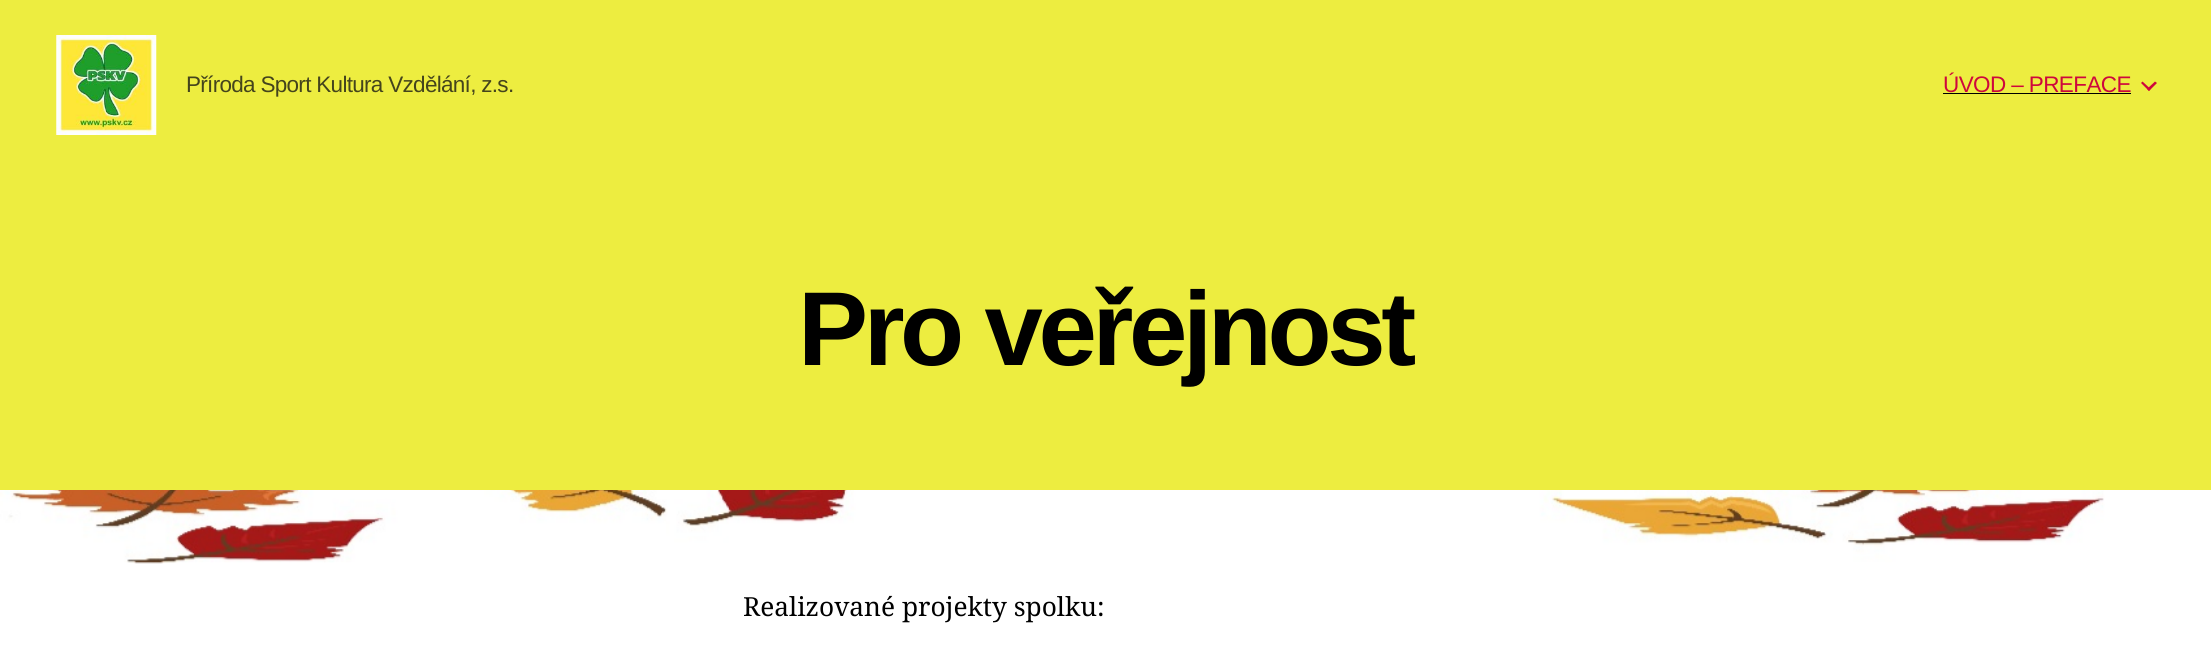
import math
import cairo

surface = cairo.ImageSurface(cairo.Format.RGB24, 2211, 658)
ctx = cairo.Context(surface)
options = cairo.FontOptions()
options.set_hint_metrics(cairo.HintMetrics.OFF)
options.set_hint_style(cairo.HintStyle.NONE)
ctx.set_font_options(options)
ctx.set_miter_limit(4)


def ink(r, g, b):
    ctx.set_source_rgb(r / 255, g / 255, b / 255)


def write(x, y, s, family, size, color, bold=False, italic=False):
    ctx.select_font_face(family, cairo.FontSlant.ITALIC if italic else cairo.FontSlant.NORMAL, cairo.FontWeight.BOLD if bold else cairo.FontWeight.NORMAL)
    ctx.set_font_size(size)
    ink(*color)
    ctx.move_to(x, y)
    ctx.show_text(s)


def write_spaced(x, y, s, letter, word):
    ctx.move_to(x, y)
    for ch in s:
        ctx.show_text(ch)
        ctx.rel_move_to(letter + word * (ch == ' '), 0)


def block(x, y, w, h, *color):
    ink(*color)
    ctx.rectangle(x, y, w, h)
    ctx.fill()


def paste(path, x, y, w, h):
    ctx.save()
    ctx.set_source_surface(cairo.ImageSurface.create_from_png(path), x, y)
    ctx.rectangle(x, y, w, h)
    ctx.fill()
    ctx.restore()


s1 = dict(family="Noto Serif", size=26.25, color=(0, 0, 0))

ink(255, 255, 255)
ctx.paint()
paste("pic1.png", 0, 490, 2211, 74)
block(0, 0, 2211, 490, 237, 237, 64)
paste("pic2.png", 56, 35, 101, 100)
ctx.select_font_face("Liberation Sans")
ctx.set_font_size(22.5)
ink(68, 68, 28)
write_spaced(186, 92, "Příroda Sport Kultura Vzdělání, z.s.", -0.7, 0)
ink(206, 7, 60)
write_spaced(1943, 92, "ÚVOD – PREFACE", -0.6, 0)
block(1943, 93, 188, 1, 0, 0, 0)
ink(206, 7, 60)
ctx.new_path()
ctx.move_to(2141, 83)
ctx.line_to(2142.5, 81.5)
ctx.line_to(2150.5, 89)
ctx.line_to(2149, 91)
ctx.close_path()
ctx.fill()
ctx.new_path()
ctx.move_to(2147, 89)
ctx.line_to(2155, 81.5)
ctx.line_to(2157, 83)
ctx.line_to(2149, 91)
ctx.close_path()
ctx.fill()
ctx.select_font_face("Liberation Sans", cairo.FontSlant.NORMAL, cairo.FontWeight.BOLD)
ctx.set_font_size(105)
ink(0, 0, 0)
write_spaced(798, 365, "Pro veřejnost", -4.4, 0)
write(743, 616, "Realizované projekty spolku:", **s1)
surface.write_to_png("screenshot.png")
